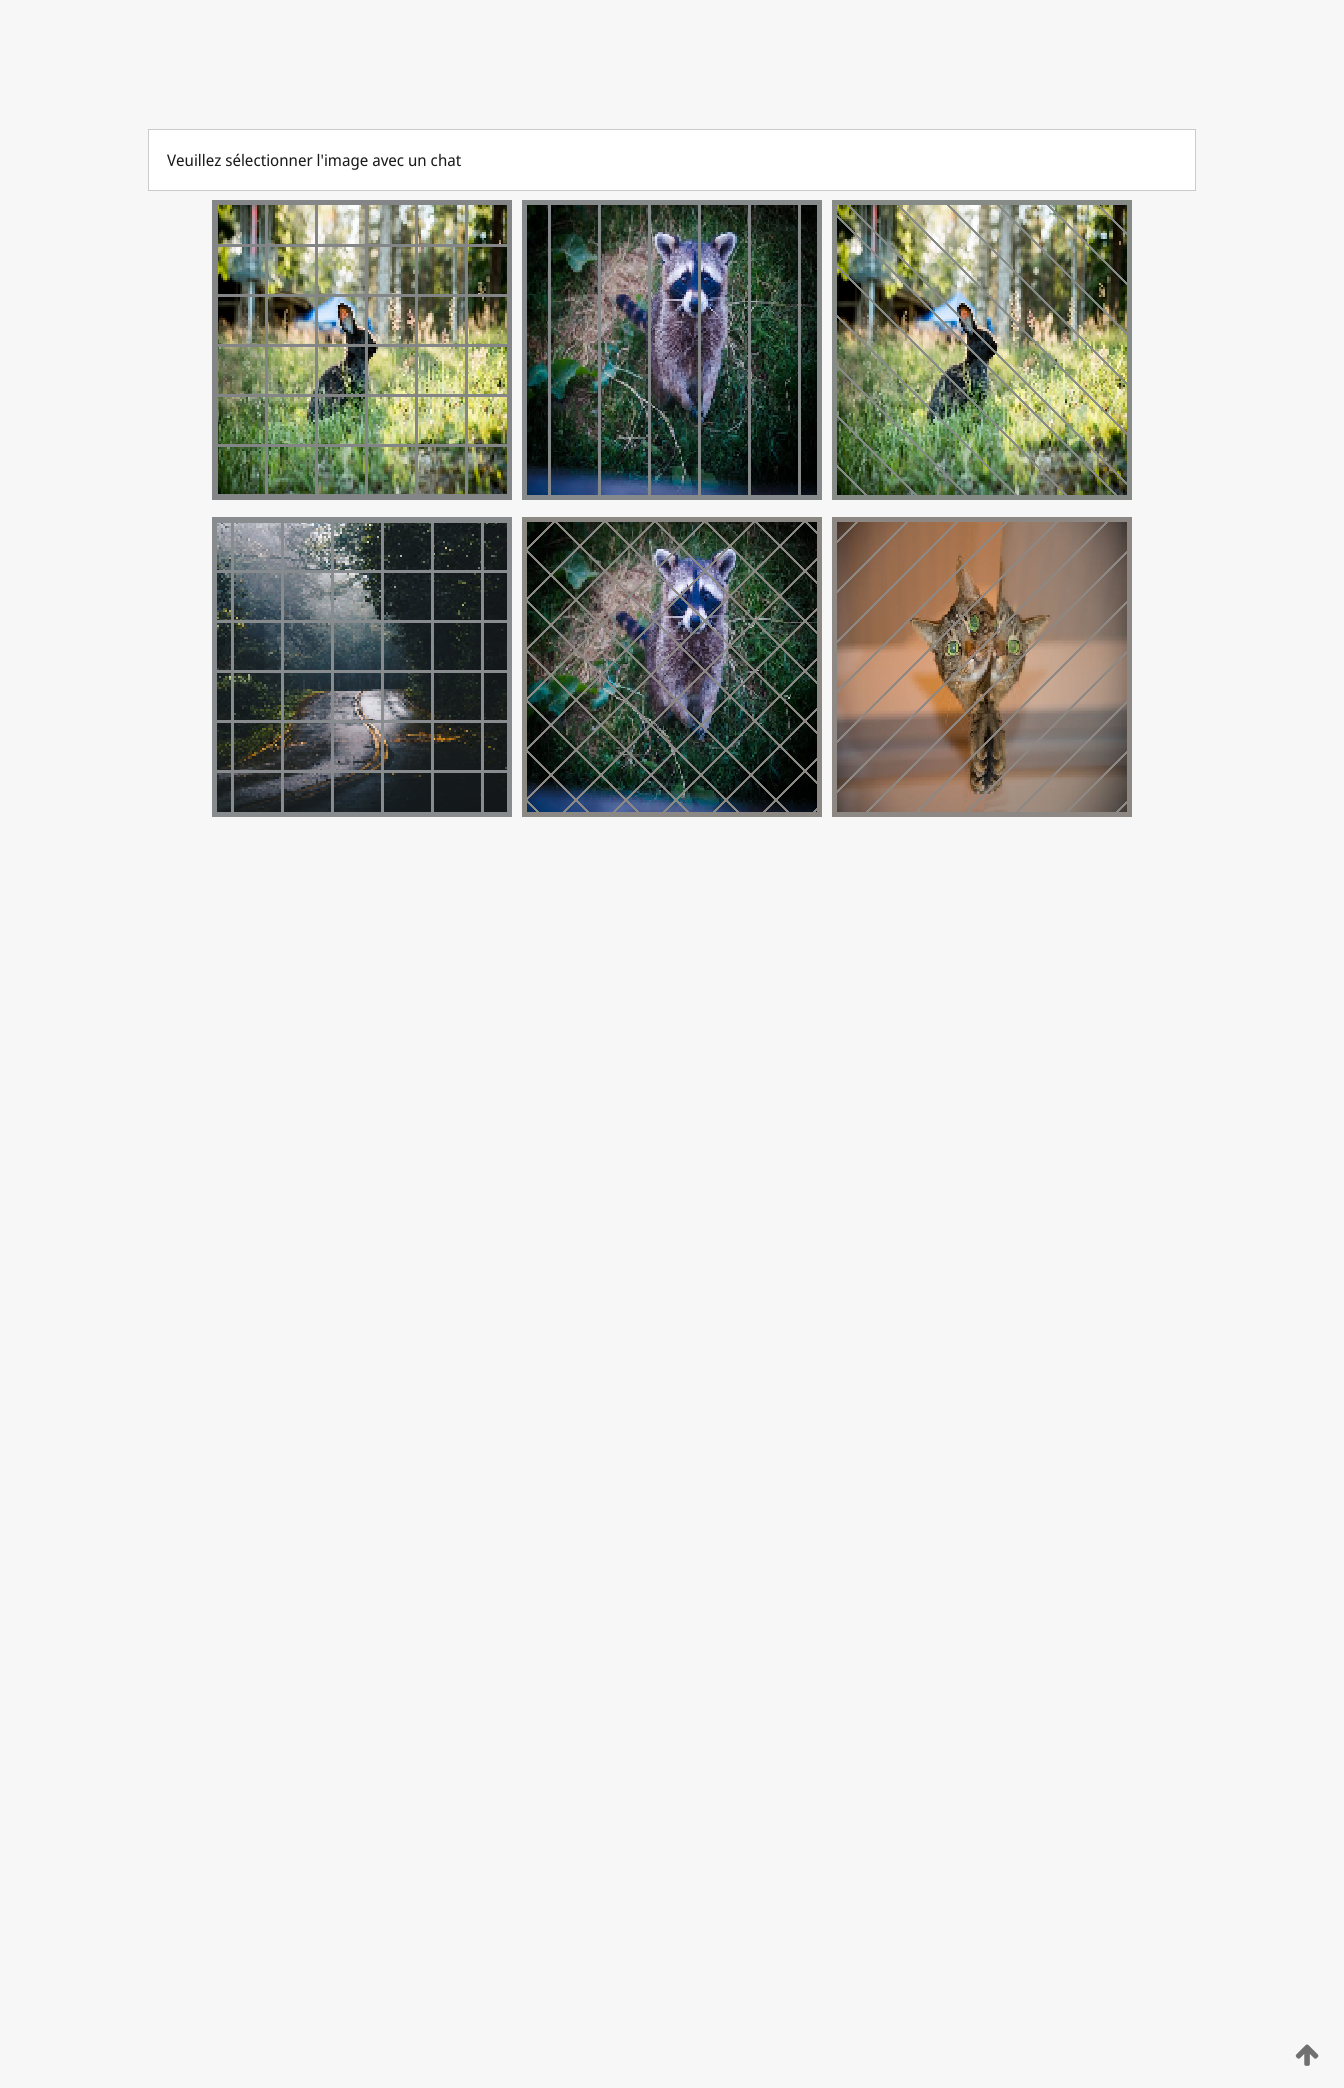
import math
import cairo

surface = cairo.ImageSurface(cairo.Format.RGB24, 1344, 2088)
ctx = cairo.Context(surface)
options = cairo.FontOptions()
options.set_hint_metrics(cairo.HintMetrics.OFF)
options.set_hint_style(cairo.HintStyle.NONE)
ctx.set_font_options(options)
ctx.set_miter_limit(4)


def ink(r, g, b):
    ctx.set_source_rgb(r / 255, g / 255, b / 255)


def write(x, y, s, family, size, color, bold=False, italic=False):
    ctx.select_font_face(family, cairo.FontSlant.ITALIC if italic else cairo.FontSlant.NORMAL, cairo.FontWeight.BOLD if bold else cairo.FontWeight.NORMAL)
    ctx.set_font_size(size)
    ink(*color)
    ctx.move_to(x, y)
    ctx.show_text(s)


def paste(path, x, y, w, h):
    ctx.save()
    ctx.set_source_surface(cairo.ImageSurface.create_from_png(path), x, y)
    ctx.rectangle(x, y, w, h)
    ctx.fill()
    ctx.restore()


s1 = dict(family="Noto Sans Display", size=16, color=(26, 26, 26))

ink(247, 247, 247)
ctx.paint()
ink(255, 255, 255)
ctx.rectangle(148.5, 129.5, 1047, 61)
ctx.fill_preserve()
ink(204, 204, 204)
ctx.set_line_width(1)
ctx.stroke()
write(167, 166, "Veuillez sélectionner l'image avec un chat", **s1)
paste("pic1.png", 212, 200, 300, 300)
paste("pic2.png", 522, 200, 300, 300)
paste("pic3.png", 832, 200, 300, 300)
paste("pic4.png", 212, 517, 300, 300)
paste("pic5.png", 522, 517, 300, 300)
paste("pic6.png", 832, 517, 300, 300)
paste("pic7.png", 1295, 2044, 24, 22)
surface.write_to_png("screenshot.png")
